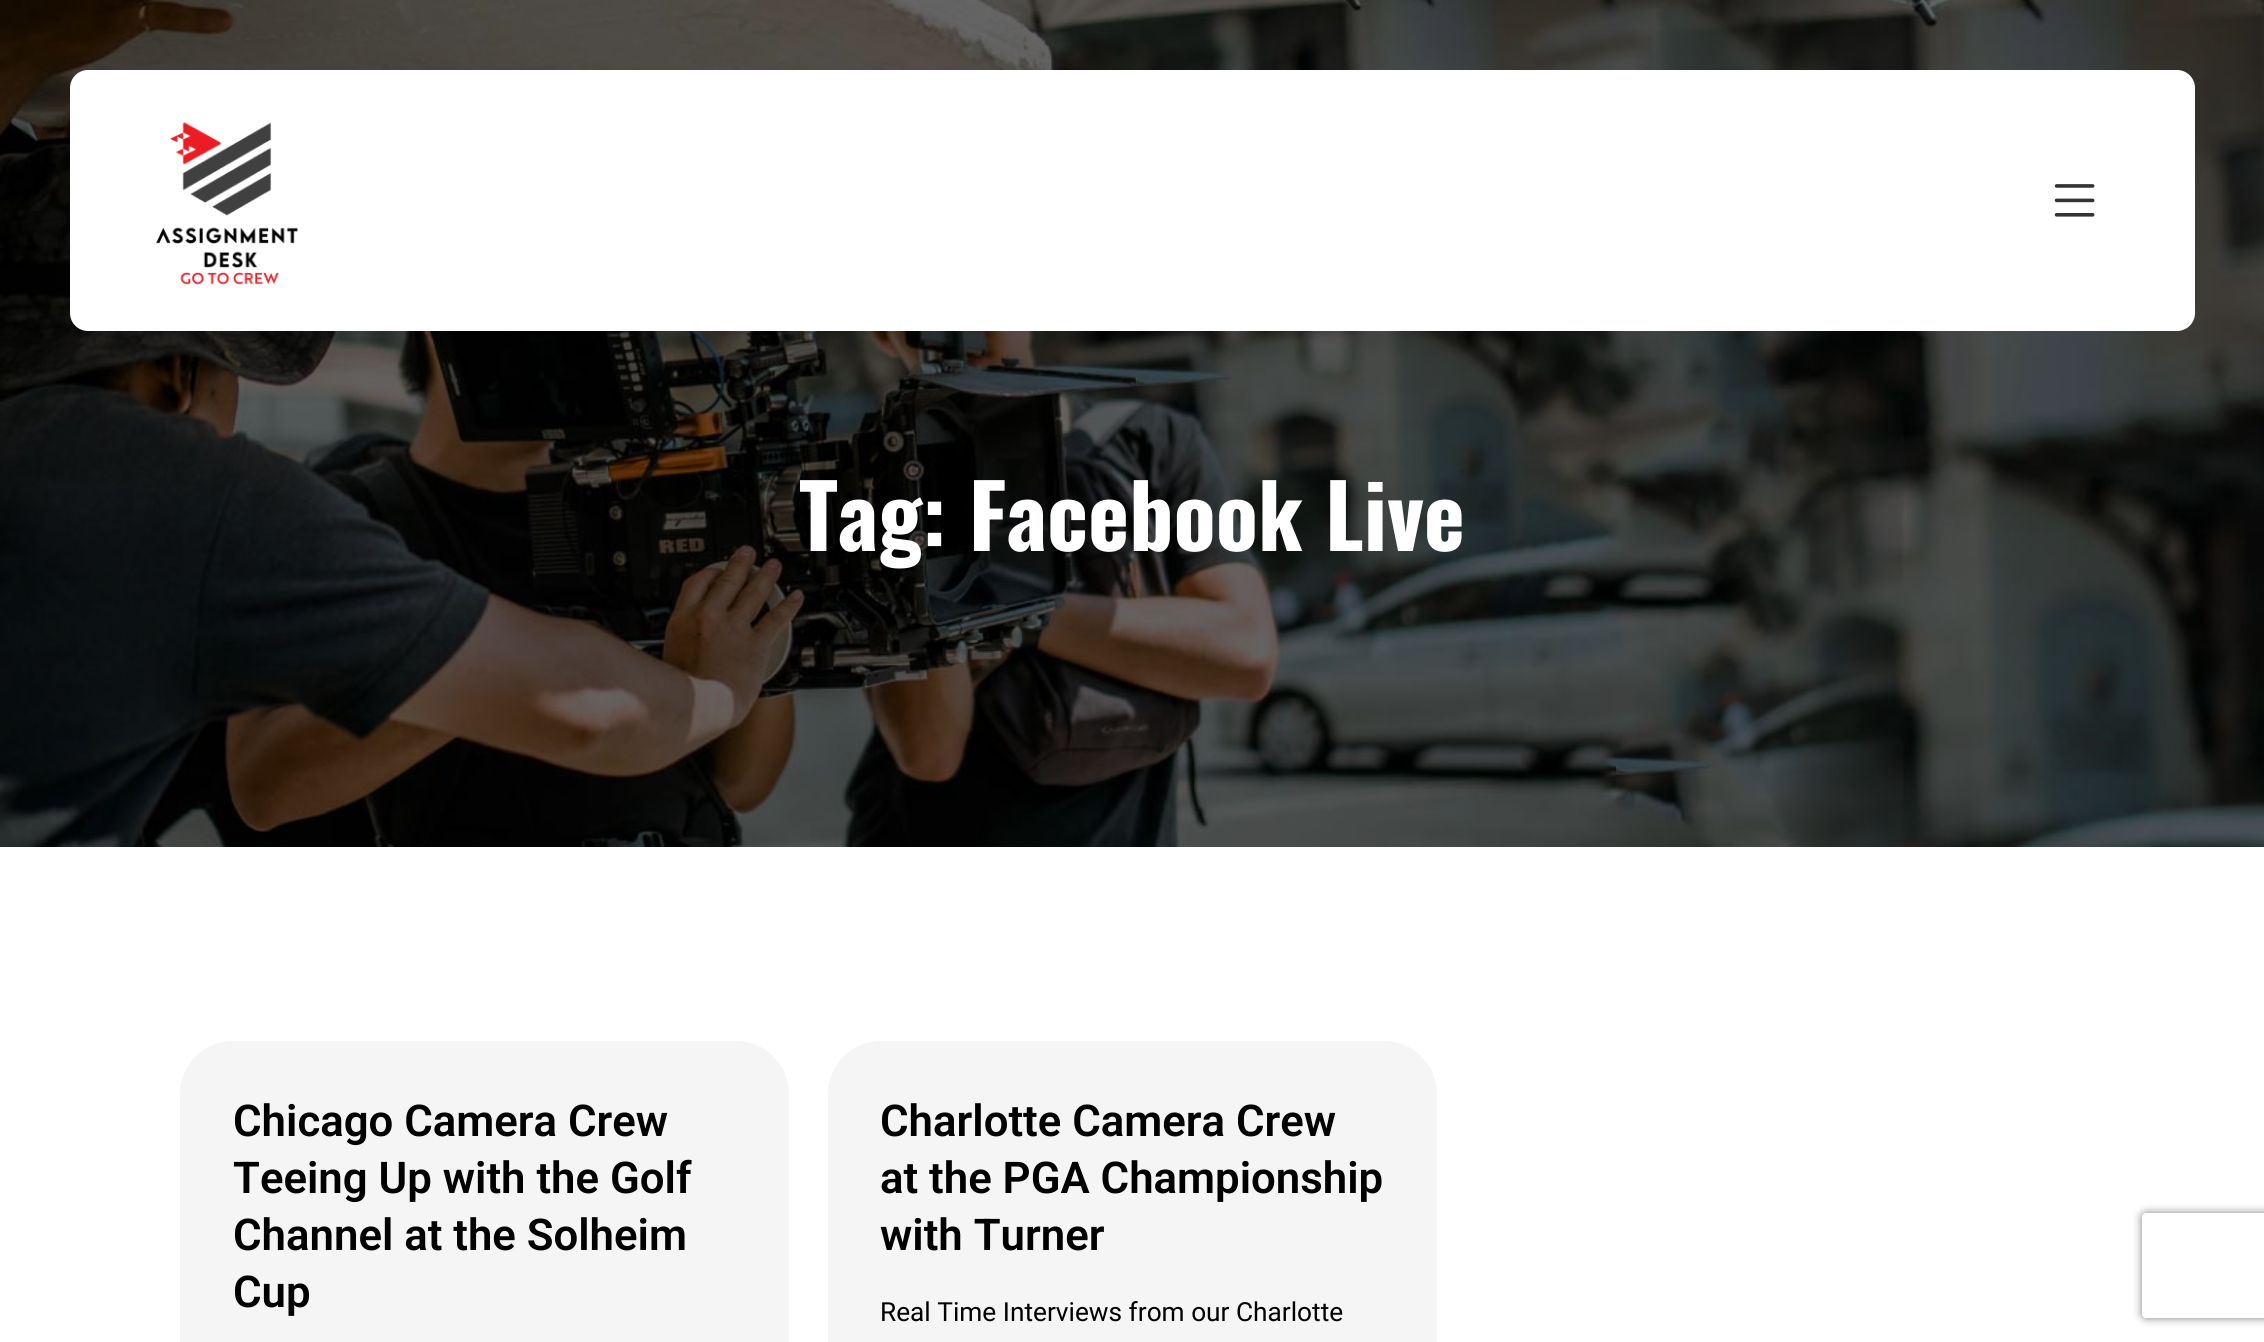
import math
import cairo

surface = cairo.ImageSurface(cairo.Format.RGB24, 2264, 1342)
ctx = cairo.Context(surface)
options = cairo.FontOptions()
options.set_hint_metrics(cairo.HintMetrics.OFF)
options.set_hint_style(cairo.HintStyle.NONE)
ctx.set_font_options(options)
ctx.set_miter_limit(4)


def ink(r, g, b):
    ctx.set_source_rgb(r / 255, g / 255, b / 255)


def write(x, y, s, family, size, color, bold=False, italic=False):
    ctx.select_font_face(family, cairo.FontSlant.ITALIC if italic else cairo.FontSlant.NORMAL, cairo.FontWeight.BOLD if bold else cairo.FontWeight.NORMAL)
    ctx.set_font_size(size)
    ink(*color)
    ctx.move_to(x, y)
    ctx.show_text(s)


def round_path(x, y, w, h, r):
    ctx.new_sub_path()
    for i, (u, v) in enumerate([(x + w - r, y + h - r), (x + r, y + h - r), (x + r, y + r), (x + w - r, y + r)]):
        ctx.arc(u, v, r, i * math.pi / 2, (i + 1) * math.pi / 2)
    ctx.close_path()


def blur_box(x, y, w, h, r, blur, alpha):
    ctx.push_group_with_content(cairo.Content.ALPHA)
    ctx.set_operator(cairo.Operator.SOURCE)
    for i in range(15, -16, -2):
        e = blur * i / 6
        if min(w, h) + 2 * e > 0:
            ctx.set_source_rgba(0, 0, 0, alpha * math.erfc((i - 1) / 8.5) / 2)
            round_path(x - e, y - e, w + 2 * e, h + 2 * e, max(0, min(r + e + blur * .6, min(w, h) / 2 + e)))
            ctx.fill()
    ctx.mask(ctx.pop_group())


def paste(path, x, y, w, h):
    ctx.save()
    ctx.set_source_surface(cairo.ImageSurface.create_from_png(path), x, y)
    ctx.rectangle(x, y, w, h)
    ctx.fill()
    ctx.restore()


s1 = dict(family="Oswald", size=87.5, color=(255, 255, 255), bold=True)
s2 = dict(family="Roboto SemiBold", size=43.75, color=(0, 0, 0))
s3 = dict(family="Roboto", size=26.25, color=(0, 0, 0))

ink(255, 255, 255)
ctx.paint()
paste("pic3.png", 0, 0, 2264, 847)
ink(255, 255, 255)
round_path(70, 70, 2125, 261, 18)
ctx.fill()
paste("pic1.png", 156, 122, 143, 163)
paste("pic2.png", 2054, 184, 41, 33)
write(799, 551, "Tag: Facebook Live", **s1)
ink(245, 245, 245)
round_path(180, 1041, 609, 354, 53)
ctx.fill()
write(233, 1136, "Chicago Camera Crew", **s2)
write(233, 1193, "Teeing Up with the Golf", **s2)
write(233, 1250, "Channel at the Solheim", **s2)
write(233, 1307, "Cup", **s2)
ink(245, 245, 245)
round_path(828, 1041, 609, 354, 53)
ctx.fill()
write(880, 1136, "Charlotte Camera Crew", **s2)
write(880, 1193, "at the PGA Championship", **s2)
write(880, 1250, "with Turner", **s2)
write(880, 1321, "Real Time Interviews from our Charlotte", **s3)
ctx.save()
ctx.set_fill_rule(cairo.FillRule.EVEN_ODD)
ctx.new_path()
ctx.move_to(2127, 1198)
ctx.line_to(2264, 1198)
ctx.line_to(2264, 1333)
ctx.line_to(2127, 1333)
ctx.close_path()
ctx.move_to(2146, 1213)
ctx.line_to(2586, 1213)
ctx.curve_to(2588, 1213, 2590, 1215, 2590, 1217)
ctx.line_to(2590, 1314)
ctx.curve_to(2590, 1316, 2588, 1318, 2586, 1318)
ctx.line_to(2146, 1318)
ctx.curve_to(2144, 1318, 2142, 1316, 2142, 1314)
ctx.line_to(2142, 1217)
ctx.curve_to(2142, 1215, 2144, 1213, 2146, 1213)
ctx.close_path()
ctx.clip()
ink(128, 128, 128)
blur_box(2142, 1213, 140, 105, 4, 4.5, 1)
ctx.restore()
surface.write_to_png("screenshot.png")
